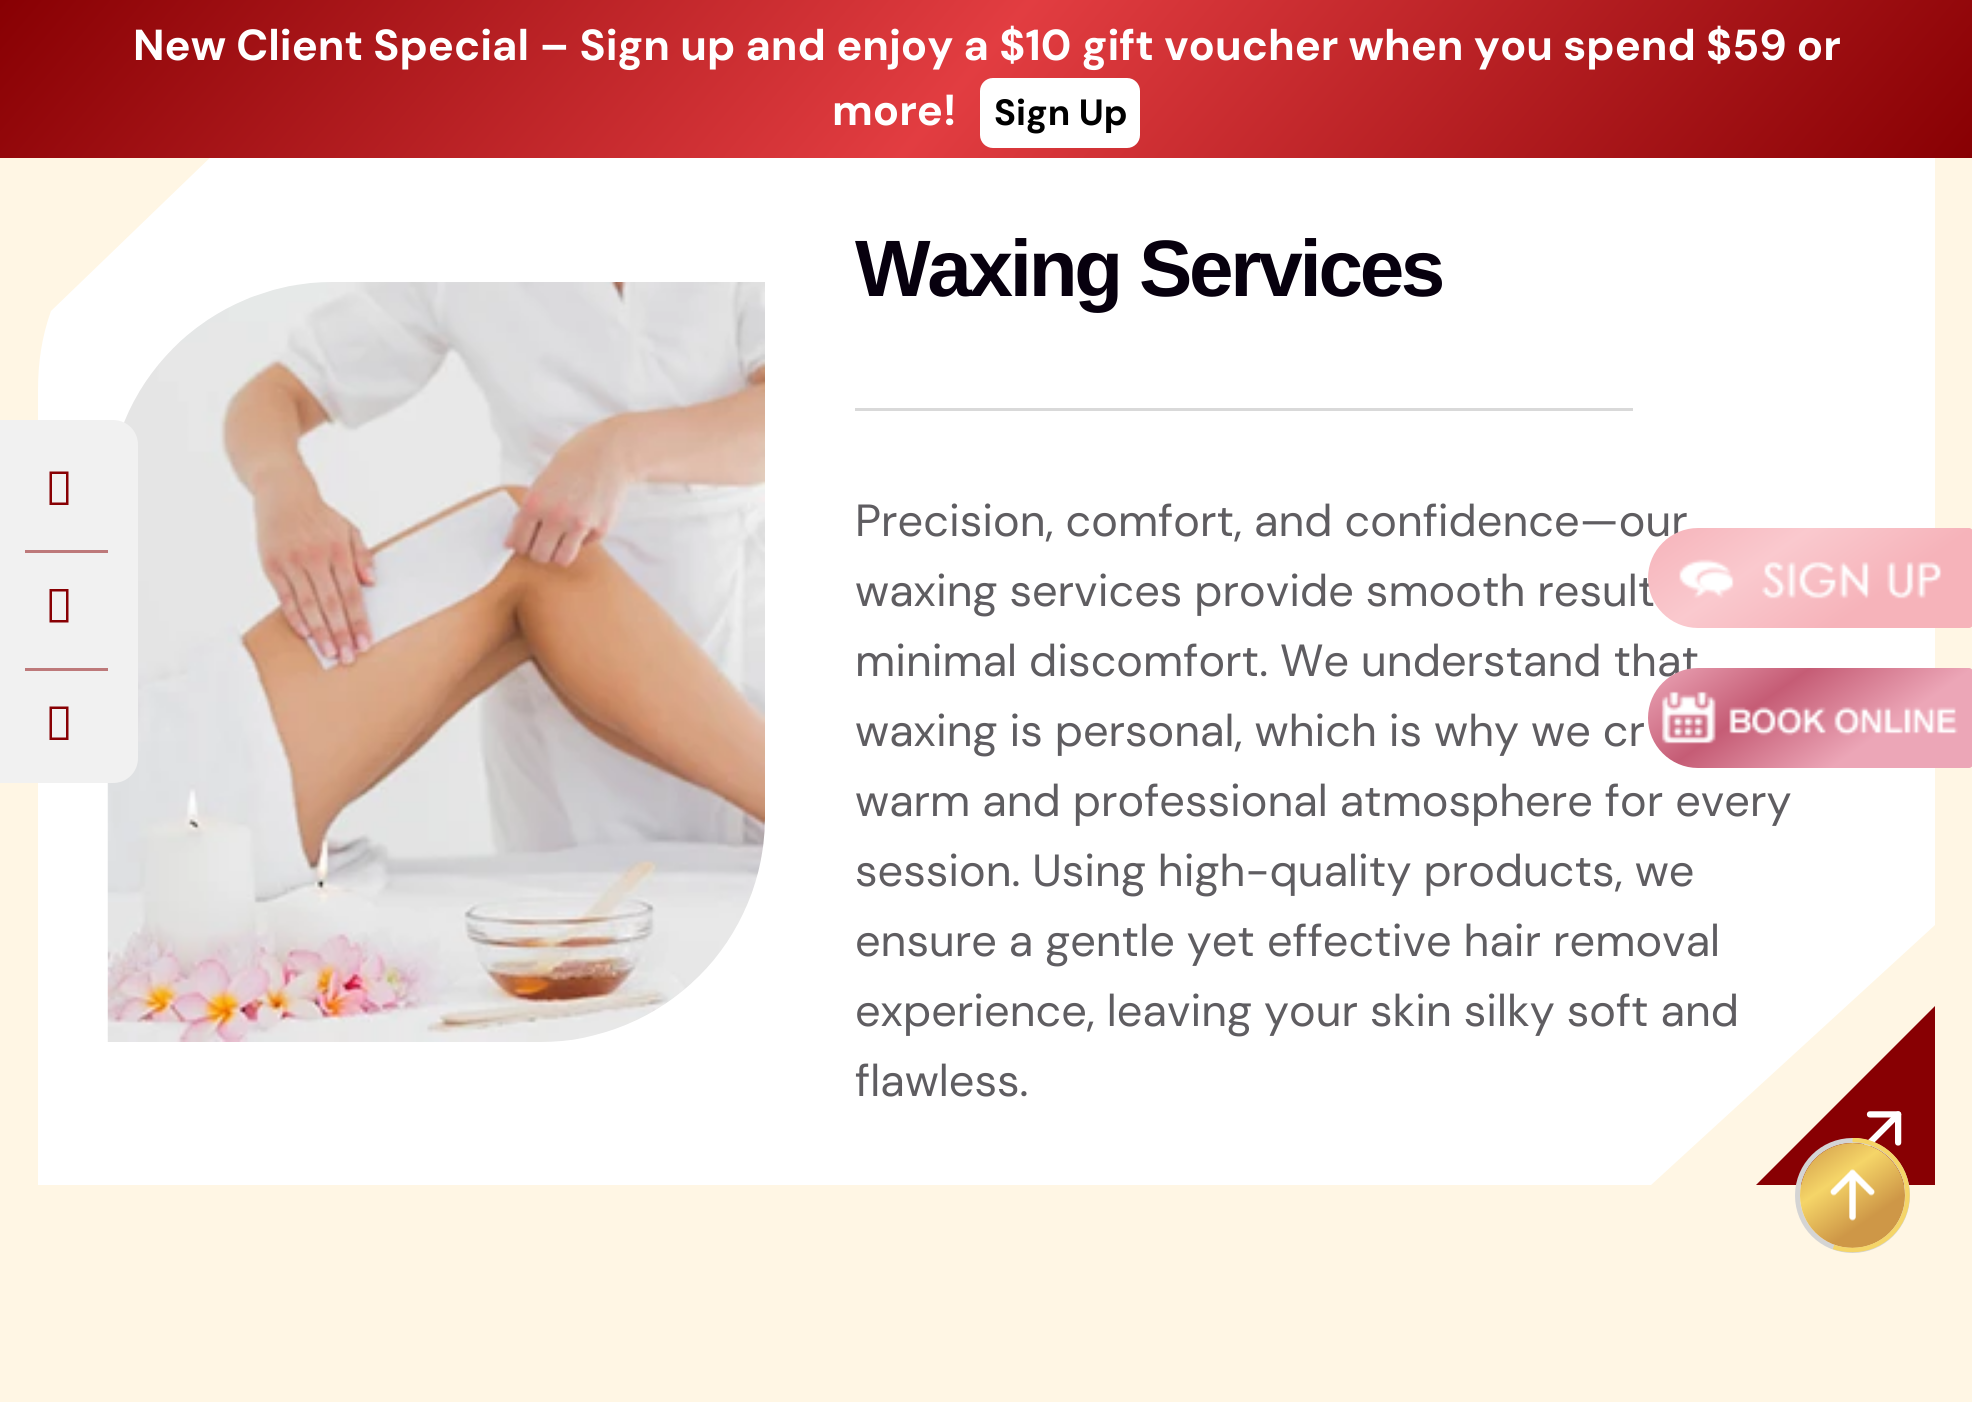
import math
import cairo

surface = cairo.ImageSurface(cairo.Format.RGB24, 1972, 1402)
ctx = cairo.Context(surface)
options = cairo.FontOptions()
options.set_hint_metrics(cairo.HintMetrics.OFF)
options.set_hint_style(cairo.HintStyle.NONE)
ctx.set_font_options(options)
ctx.set_miter_limit(4)


def ink(r, g, b):
    ctx.set_source_rgb(r / 255, g / 255, b / 255)


def write(x, y, s, family, size, color, bold=False, italic=False):
    ctx.select_font_face(family, cairo.FontSlant.ITALIC if italic else cairo.FontSlant.NORMAL, cairo.FontWeight.BOLD if bold else cairo.FontWeight.NORMAL)
    ctx.set_font_size(size)
    ink(*color)
    ctx.move_to(x, y)
    ctx.show_text(s)


def write_spaced(x, y, s, letter, word):
    ctx.move_to(x, y)
    for ch in s:
        ctx.show_text(ch)
        ctx.rel_move_to(letter + word * (ch == ' '), 0)


def block(x, y, w, h, *color):
    ink(*color)
    ctx.rectangle(x, y, w, h)
    ctx.fill()


def round_path(x, y, w, h, r):
    ctx.new_sub_path()
    for i, (u, v) in enumerate([(x + w - r, y + h - r), (x + r, y + h - r), (x + r, y + r), (x + w - r, y + r)]):
        ctx.arc(u, v, r, i * math.pi / 2, (i + 1) * math.pi / 2)
    ctx.close_path()


def paste(path, x, y, w, h):
    ctx.save()
    ctx.set_source_surface(cairo.ImageSurface.create_from_png(path), x, y)
    ctx.rectangle(x, y, w, h)
    ctx.fill()
    ctx.restore()


s1 = dict(family="DM Sans", size=43.35, color=(255, 255, 255), bold=True)
s2 = dict(family="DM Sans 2", size=36.5, color=(0, 0, 0), bold=True)
s3 = dict(family="DM Sans", size=45, color=(95, 93, 97))

ink(255, 246, 228)
ctx.paint()
ink(255, 255, 255)
ctx.new_path()
ctx.move_to(218, 150)
ctx.curve_to(233, 146, 248, 143, 264, 141)
ctx.line_to(1935, 141)
ctx.line_to(1935, 925)
ctx.line_to(1651, 1185)
ctx.line_to(38, 1185)
ctx.line_to(38, 390)
ctx.curve_to(38, 362, 42, 336, 51, 311)
ctx.close_path()
ctx.fill()
gradient = cairo.LinearGradient(369, -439, 1604, 597)
gradient.add_color_stop_rgba(0, 0.533, 0, 0.012, 1)
gradient.add_color_stop_rgba(0.49, 0.886, 0.239, 0.255, 1)
gradient.add_color_stop_rgba(1, 0.533, 0, 0.012, 1)
ctx.set_source(gradient)
ctx.rectangle(0, 0, 1972, 158)
ctx.fill()
write(133, 60, "New Client Special – Sign up and enjoy a $10 gift voucher when you spend $59 or", **s1)
write(832, 125, "more!", **s1)
round_path(980, 78, 160, 70, 13)
ctx.fill()
write(994, 125, "Sign Up", **s2)
paste("pic1.png", 107, 282, 658, 760)
ink(241, 241, 241)
ctx.new_path()
ctx.move_to(0, 420)
ctx.line_to(113, 420)
ctx.curve_to(127, 420, 138, 431, 138, 445)
ctx.line_to(138, 758)
ctx.curve_to(138, 772, 127, 783, 113, 783)
ctx.line_to(0, 783)
ctx.close_path()
ctx.fill()
ink(136, 0, 3)
ctx.new_path()
ctx.move_to(49.5, 505)
ctx.line_to(49.5, 471.5)
ctx.line_to(68.5, 471.5)
ctx.line_to(68.5, 505)
ctx.close_path()
ctx.move_to(52, 502.5)
ctx.line_to(66, 502.5)
ctx.line_to(66, 474)
ctx.line_to(52, 474)
ctx.close_path()
ctx.fill()
block(25, 550, 83, 3, 189, 121, 122)
ink(136, 0, 3)
ctx.new_path()
ctx.move_to(49.5, 622.5)
ctx.line_to(49.5, 589)
ctx.line_to(68.5, 589)
ctx.line_to(68.5, 622.5)
ctx.close_path()
ctx.move_to(52, 620)
ctx.line_to(66, 620)
ctx.line_to(66, 591.5)
ctx.line_to(52, 591.5)
ctx.close_path()
ctx.fill()
block(25, 668, 83, 3, 189, 121, 122)
ink(136, 0, 3)
ctx.new_path()
ctx.move_to(49.5, 740)
ctx.line_to(49.5, 706.5)
ctx.line_to(68.5, 706.5)
ctx.line_to(68.5, 740)
ctx.close_path()
ctx.move_to(52, 737.5)
ctx.line_to(66, 737.5)
ctx.line_to(66, 709)
ctx.line_to(52, 709)
ctx.close_path()
ctx.fill()
ctx.select_font_face("Liberation Sans", cairo.FontSlant.NORMAL, cairo.FontWeight.BOLD)
ctx.set_font_size(80)
ink(7, 0, 14)
write_spaced(855, 296, "Waxing Services", -3.25, 0)
block(855, 408, 778, 3, 217, 217, 217)
write(855, 536, "Precision, comfort, and confidence—our", **s3)
write(855, 606, "waxing services provide smooth result", **s3)
write(855, 676, "minimal discomfort. We understand that", **s3)
write(855, 746, "waxing is personal, which is why we cr", **s3)
write(855, 816, "warm and professional atmosphere for every", **s3)
write(855, 886, "session. Using high-quality products, we", **s3)
write(855, 956, "ensure a gentle yet effective hair removal", **s3)
write(855, 1026, "experience, leaving your skin silky soft and", **s3)
write(855, 1096, "flawless.", **s3)
ink(136, 0, 3)
ctx.new_path()
ctx.move_to(1935, 1006)
ctx.line_to(1756, 1185)
ctx.line_to(1935, 1185)
ctx.close_path()
ctx.fill()
paste("pic2.png", 1863, 1111, 39, 36)
ctx.arc(1852.5, 1195.5, 55, 0, 2 * math.pi)
ink(212, 212, 212)
ctx.set_line_width(5)
ctx.stroke()
gradient = cairo.LinearGradient(1811, 1135, 1894, 1255)
gradient.add_color_stop_rgba(0, 0.808, 0.592, 0.278, 1)
gradient.add_color_stop_rgba(0.35, 0.961, 0.835, 0.408, 1)
gradient.add_color_stop_rgba(0.7, 0.808, 0.592, 0.278, 1)
ctx.set_source(gradient)
ctx.arc(1852.5, 1195.5, 52.5, 0, 2 * math.pi)
ctx.fill()
ctx.save()
ctx.rectangle(1795, 1138, 115, 115)
ctx.clip()
ctx.new_path()
ctx.move_to(1852.5, 1140)
ctx.curve_to(1883, 1140, 1907.5, 1164.5, 1907.5, 1195)
ctx.curve_to(1907.5, 1225.5, 1883, 1250, 1852.5, 1250)
ctx.curve_to(1846, 1250, 1839.5, 1249, 1833.5, 1247)
ink(245, 213, 104)
ctx.set_line_width(4.5)
ctx.stroke()
ctx.restore()
paste("pic3.png", 1830, 1169, 45, 52)
gradient = cairo.LinearGradient(1733, 468, 1887, 687)
gradient.add_color_stop_rgba(0, 0.965, 0.702, 0.729, 1)
gradient.add_color_stop_rgba(0.35, 0.98, 0.788, 0.808, 1)
gradient.add_color_stop_rgba(0.7, 0.965, 0.702, 0.729, 1)
ctx.set_source(gradient)
ctx.new_path()
ctx.move_to(1698, 528)
ctx.line_to(1969, 528)
ctx.curve_to(1971, 528, 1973, 530, 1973, 532)
ctx.line_to(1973, 624)
ctx.curve_to(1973, 626, 1971, 628, 1969, 628)
ctx.line_to(1698, 628)
ctx.curve_to(1670.5, 628, 1648, 605.5, 1648, 578)
ctx.curve_to(1648, 550.5, 1670.5, 528, 1698, 528)
ctx.close_path()
ctx.fill()
paste("pic4.png", 1679, 559, 263, 40)
gradient = cairo.LinearGradient(1733, 608, 1887, 827)
gradient.add_color_stop_rgba(0, 0.925, 0.651, 0.718, 1)
gradient.add_color_stop_rgba(0.35, 0.773, 0.361, 0.459, 1)
gradient.add_color_stop_rgba(0.7, 0.925, 0.651, 0.718, 1)
ctx.set_source(gradient)
ctx.new_path()
ctx.move_to(1698, 668)
ctx.line_to(1969, 668)
ctx.curve_to(1971, 668, 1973, 670, 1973, 672)
ctx.line_to(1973, 764)
ctx.curve_to(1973, 766, 1971, 768, 1969, 768)
ctx.line_to(1698, 768)
ctx.curve_to(1670.5, 768, 1648, 745.5, 1648, 718)
ctx.curve_to(1648, 690.5, 1670.5, 668, 1698, 668)
ctx.close_path()
ctx.fill()
paste("pic5.png", 1661, 691, 297, 53)
surface.write_to_png("screenshot.png")
